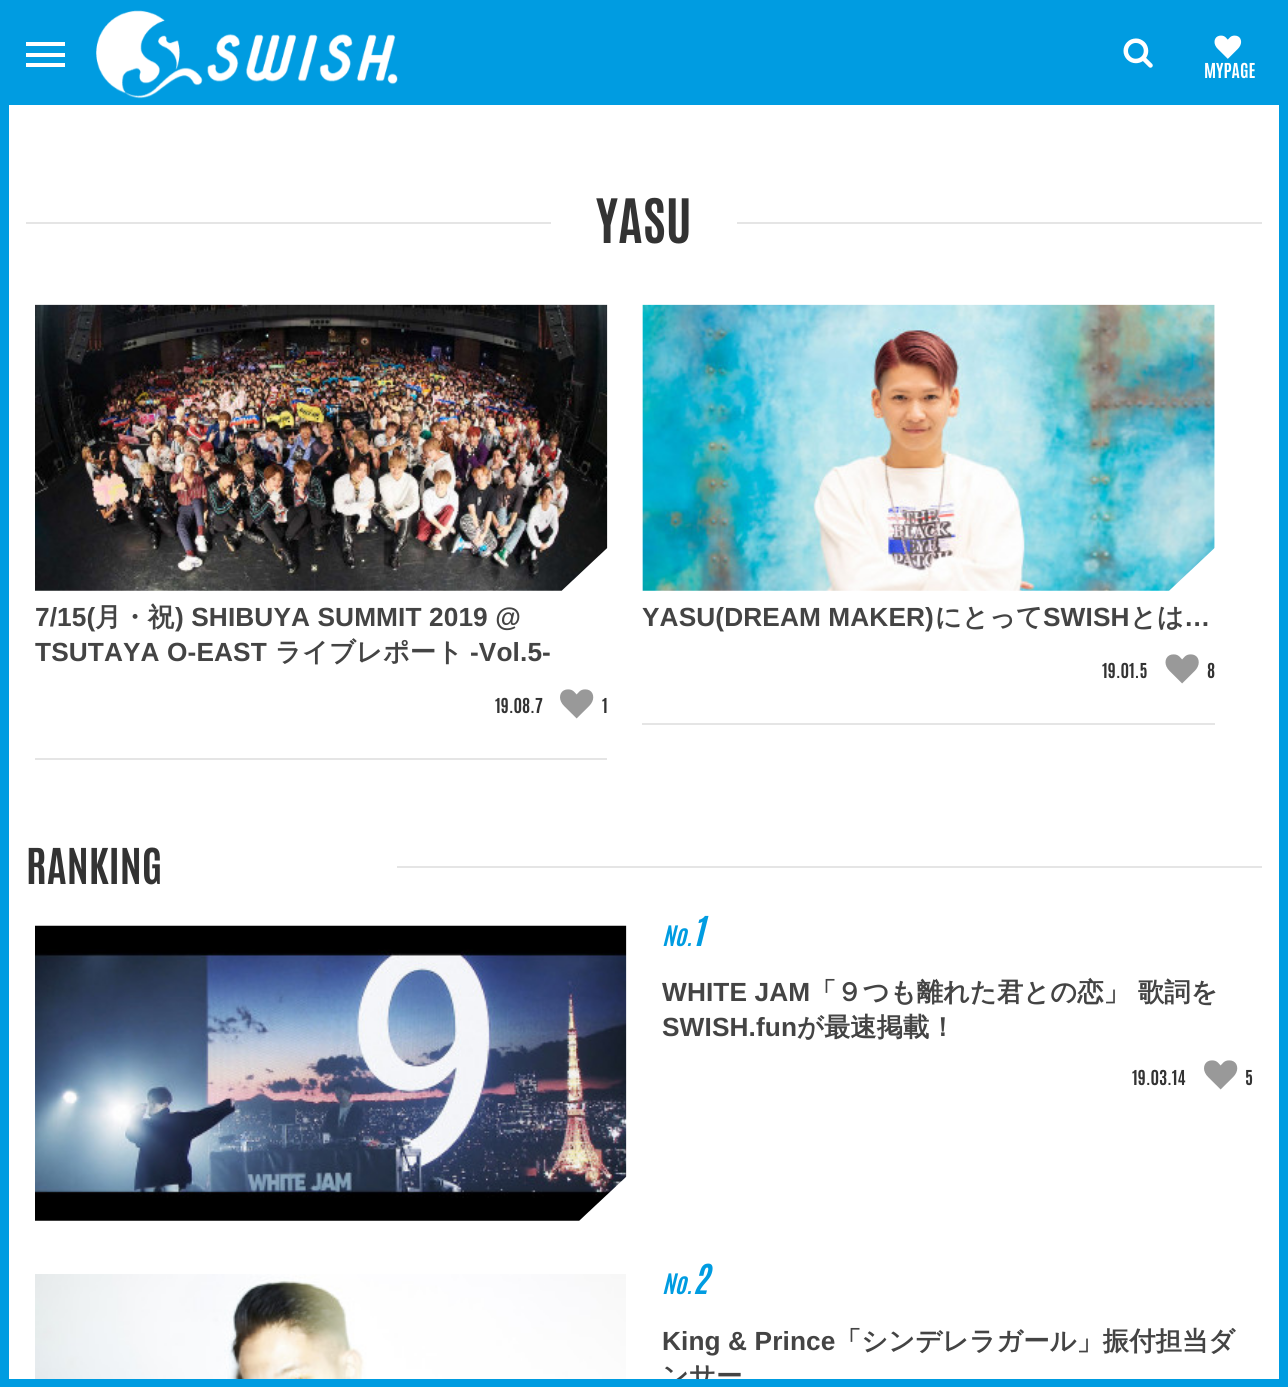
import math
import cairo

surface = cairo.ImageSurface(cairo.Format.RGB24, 1288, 1387)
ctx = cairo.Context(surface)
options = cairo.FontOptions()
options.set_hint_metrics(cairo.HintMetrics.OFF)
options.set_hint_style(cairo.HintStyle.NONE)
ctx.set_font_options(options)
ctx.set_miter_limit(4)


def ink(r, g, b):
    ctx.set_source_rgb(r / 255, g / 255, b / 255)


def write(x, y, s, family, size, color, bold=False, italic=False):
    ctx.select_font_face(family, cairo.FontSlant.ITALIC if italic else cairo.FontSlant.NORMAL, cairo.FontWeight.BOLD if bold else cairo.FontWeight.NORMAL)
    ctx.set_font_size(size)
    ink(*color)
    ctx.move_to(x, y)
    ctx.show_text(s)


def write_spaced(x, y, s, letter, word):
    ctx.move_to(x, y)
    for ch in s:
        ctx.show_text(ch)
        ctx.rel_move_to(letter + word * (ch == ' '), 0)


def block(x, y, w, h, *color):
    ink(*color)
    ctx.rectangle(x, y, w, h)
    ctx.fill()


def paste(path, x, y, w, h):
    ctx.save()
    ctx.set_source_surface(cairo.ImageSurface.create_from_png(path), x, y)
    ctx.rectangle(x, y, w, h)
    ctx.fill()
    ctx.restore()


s1 = dict(family="Antonio", size=17.5, color=(255, 255, 255), bold=True)
s2 = dict(family="Antonio", size=52, color=(51, 51, 51), bold=True)
s3 = dict(family="Antonio", size=17.5, color=(51, 51, 51), bold=True)
s4 = dict(family="Antonio", size=42, color=(51, 51, 51), bold=True)
s5 = dict(family="Antonio", size=24, color=(0, 156, 225), bold=True, italic=True)
s6 = dict(family="Antonio", size=35, color=(0, 156, 225), bold=True, italic=True)

ink(255, 255, 255)
ctx.paint()
block(0, 0, 1288, 105, 0, 156, 225)
paste("pic1.png", 96, 10, 302, 89)
block(26, 42, 39, 4, 255, 255, 255)
block(26, 53, 39, 4, 255, 255, 255)
block(26, 63, 39, 4, 255, 255, 255)
paste("pic2.png", 1123, 38, 30, 30)
paste("pic3.png", 1214, 35, 28, 24)
write(1204, 78, "MYPAGE", **s1)
block(0, 105, 9, 1274, 0, 156, 225)
block(1279, 105, 9, 1274, 0, 156, 225)
ctx.select_font_face("WenQuanYi Zen Hei", cairo.FontSlant.NORMAL, cairo.FontWeight.BOLD)
ctx.set_font_size(26.25)
ink(68, 68, 68)
write_spaced(662, 1385, "ンサー", 0.1, 0)
block(0, 1379, 1288, 8, 0, 156, 225)
block(26, 222, 525, 2, 229, 229, 229)
write(596, 243, "YASU", **s2)
block(737, 222, 525, 2, 229, 229, 229)
block(35, 758, 572, 2, 229, 229, 229)
paste("pic4.png", 35, 304, 573, 287)
ctx.select_font_face("Liberation Sans", cairo.FontSlant.NORMAL, cairo.FontWeight.BOLD)
ctx.set_font_size(26.25)
ink(68, 68, 68)
write_spaced(35, 626, "7/15(", 0.1, 0)
ctx.select_font_face("WenQuanYi Zen Hei", cairo.FontSlant.NORMAL, cairo.FontWeight.BOLD)
write_spaced(95, 626, "月・祝", 0.1, 0)
ctx.select_font_face("Liberation Sans", cairo.FontSlant.NORMAL, cairo.FontWeight.BOLD)
write_spaced(175, 626, ") SHIBUYA SUMMIT 2019 @", 0.1, 0)
write_spaced(35, 661, "TSUTAYA O-EAST", 0.1, 0)
ctx.select_font_face("WenQuanYi Zen Hei", cairo.FontSlant.NORMAL, cairo.FontWeight.BOLD)
write_spaced(275, 661, "ライブレポート", 0.1, 0)
ctx.select_font_face("Liberation Sans", cairo.FontSlant.NORMAL, cairo.FontWeight.BOLD)
write_spaced(470, 661, "-Vol.5-", 0.1, 0)
write(495, 713, "19.08.7", **s3)
paste("pic5.png", 560, 689, 34, 30)
write(602, 713, "1", **s3)
block(642, 723, 573, 2, 229, 229, 229)
paste("pic6.png", 642, 304, 573, 287)
ctx.select_font_face("Liberation Sans", cairo.FontSlant.NORMAL, cairo.FontWeight.BOLD)
ctx.set_font_size(26.25)
ink(68, 68, 68)
write_spaced(642, 626, "YASU(DREAM MAKER)", 0.1, 0)
ctx.select_font_face("WenQuanYi Zen Hei", cairo.FontSlant.NORMAL, cairo.FontWeight.BOLD)
write_spaced(935, 626, "にとって", 0.1, 0)
ctx.select_font_face("Liberation Sans", cairo.FontSlant.NORMAL, cairo.FontWeight.BOLD)
write_spaced(1043, 626, "SWISH", 0.1, 0)
ctx.select_font_face("WenQuanYi Zen Hei", cairo.FontSlant.NORMAL, cairo.FontWeight.BOLD)
write_spaced(1130, 626, "とは", 0.1, 0)
ctx.select_font_face("Liberation Sans", cairo.FontSlant.NORMAL, cairo.FontWeight.BOLD)
write_spaced(1184, 626, "…", 0.1, 0)
write(1102, 678, "19.01.5", **s3)
paste("pic7.png", 1165, 654, 34, 30)
write(1207, 678, "8", **s3)
write(26, 884, "RANKING", **s4)
block(397, 866, 865, 2, 229, 229, 229)
paste("pic8.png", 35, 925, 592, 296)
write(662, 946, "No.", **s5)
write(692, 946, "1", **s6)
ctx.select_font_face("Liberation Sans", cairo.FontSlant.NORMAL, cairo.FontWeight.BOLD)
ctx.set_font_size(26.25)
ink(68, 68, 68)
write_spaced(662, 1001, "WHITE JAM", 0.1, 0)
ctx.select_font_face("WenQuanYi Zen Hei", cairo.FontSlant.NORMAL, cairo.FontWeight.BOLD)
write_spaced(810, 1001, "「９つも離れた君との恋」", 0.1, 0)
write_spaced(1138, 1001, "歌詞を", 0.1, 0)
ctx.select_font_face("Liberation Sans", cairo.FontSlant.NORMAL, cairo.FontWeight.BOLD)
write_spaced(662, 1036, "SWISH.fun", 0.1, 0)
ctx.select_font_face("WenQuanYi Zen Hei", cairo.FontSlant.NORMAL, cairo.FontWeight.BOLD)
write_spaced(797, 1036, "が最速掲載！", 0.1, 0)
write(1132, 1085, "19.03.14", **s3)
paste("pic5.png", 1204, 1060, 34, 30)
write(1245, 1085, "5", **s3)
paste("pic9.png", 35, 1274, 591, 105)
write(662, 1294, "No.", **s5)
write(692, 1294, "2", **s6)
ctx.select_font_face("Liberation Sans", cairo.FontSlant.NORMAL, cairo.FontWeight.BOLD)
ctx.set_font_size(26.25)
ink(68, 68, 68)
write_spaced(662, 1350, "King & Prince", 0.1, 0)
ctx.select_font_face("WenQuanYi Zen Hei", cairo.FontSlant.NORMAL, cairo.FontWeight.BOLD)
write_spaced(835, 1350, "「シンデレラガール」振付担当ダ", 0.1, 0)
surface.write_to_png("screenshot.png")
